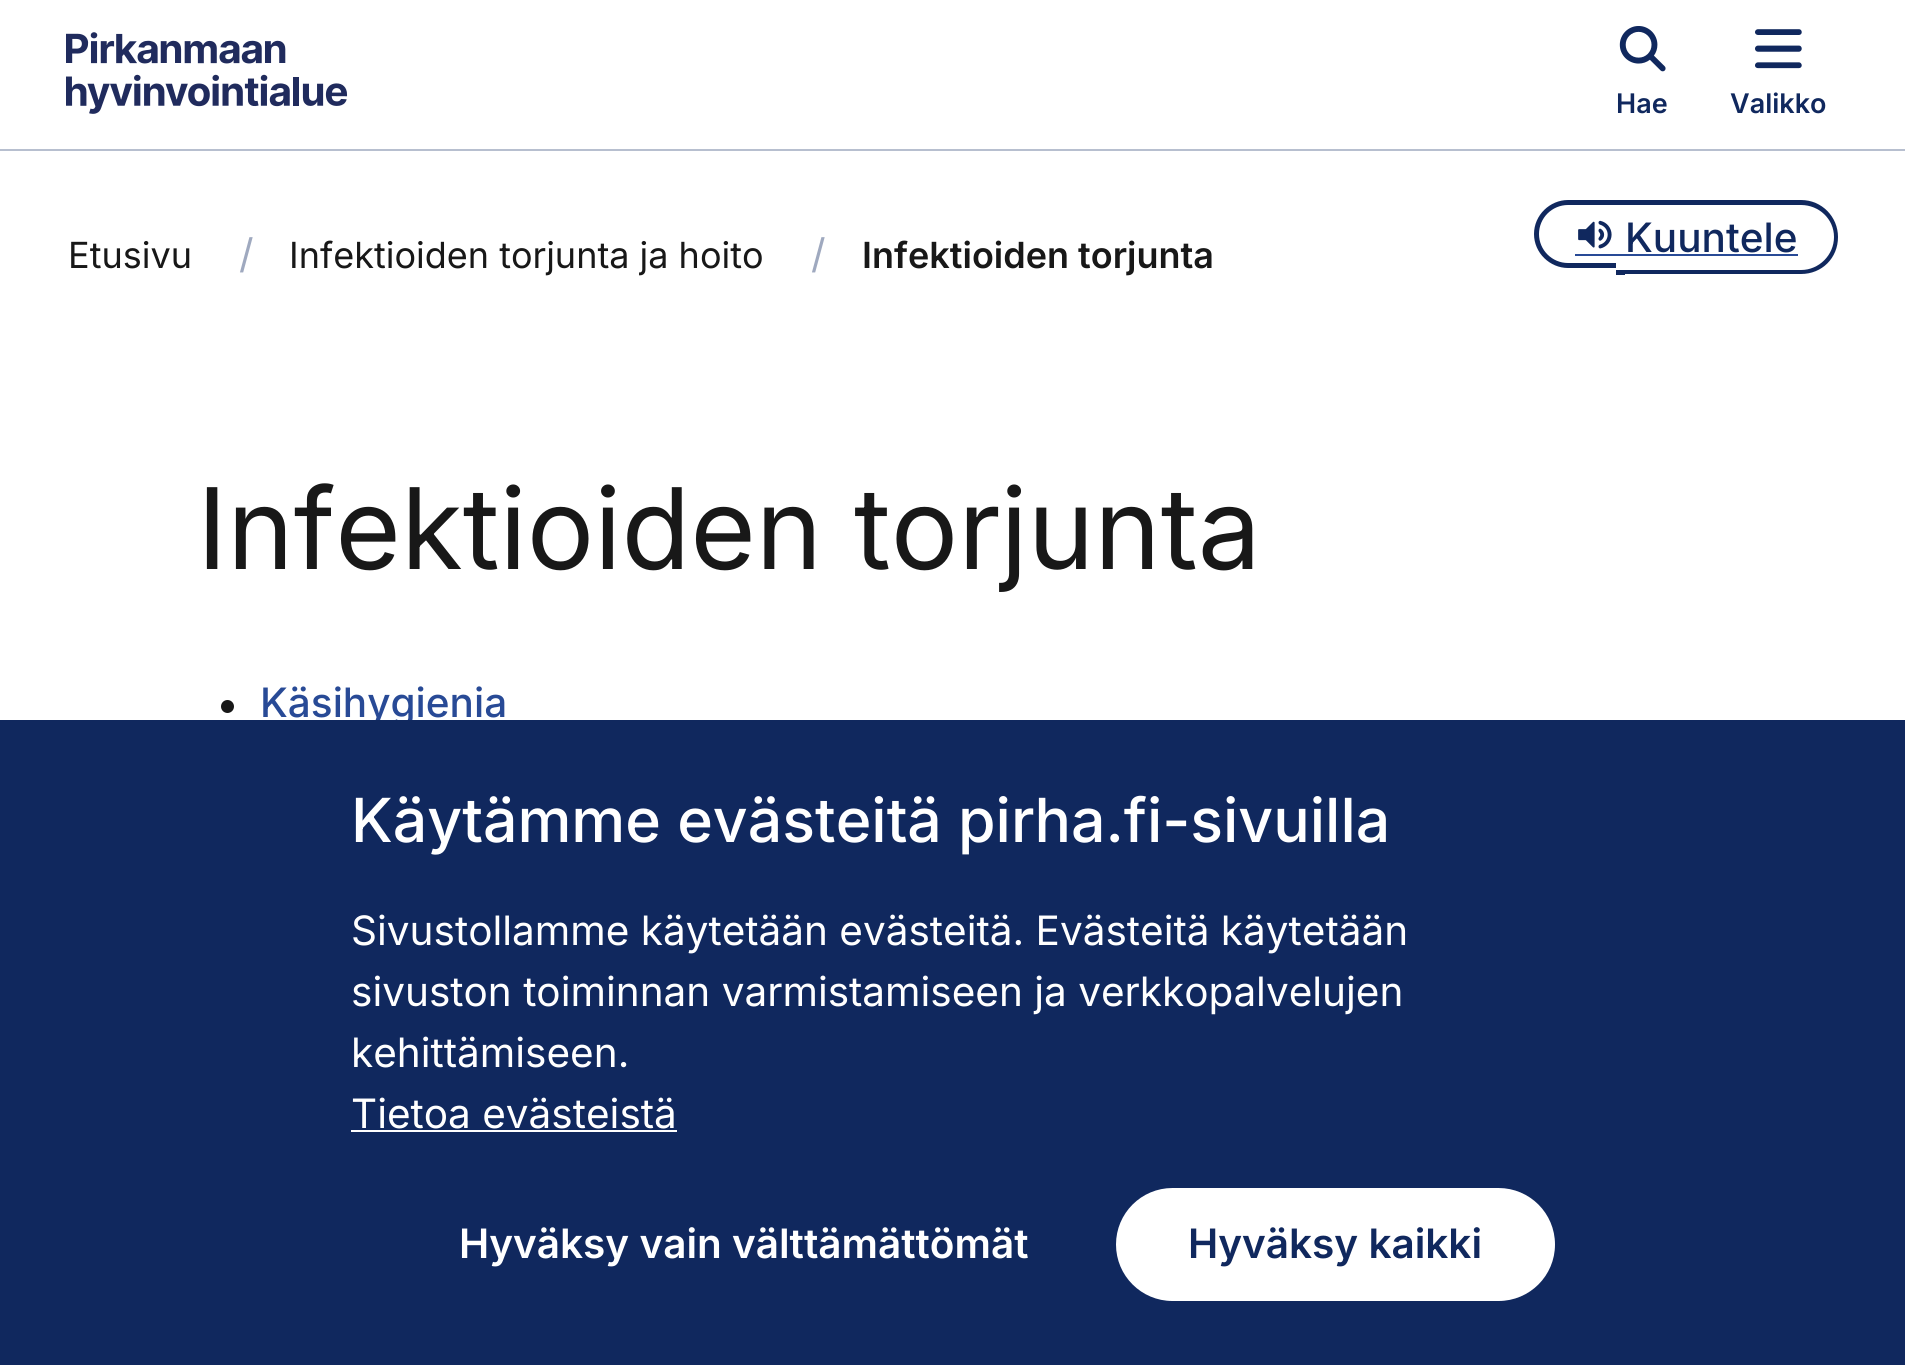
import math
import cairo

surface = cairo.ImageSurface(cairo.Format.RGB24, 1905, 1365)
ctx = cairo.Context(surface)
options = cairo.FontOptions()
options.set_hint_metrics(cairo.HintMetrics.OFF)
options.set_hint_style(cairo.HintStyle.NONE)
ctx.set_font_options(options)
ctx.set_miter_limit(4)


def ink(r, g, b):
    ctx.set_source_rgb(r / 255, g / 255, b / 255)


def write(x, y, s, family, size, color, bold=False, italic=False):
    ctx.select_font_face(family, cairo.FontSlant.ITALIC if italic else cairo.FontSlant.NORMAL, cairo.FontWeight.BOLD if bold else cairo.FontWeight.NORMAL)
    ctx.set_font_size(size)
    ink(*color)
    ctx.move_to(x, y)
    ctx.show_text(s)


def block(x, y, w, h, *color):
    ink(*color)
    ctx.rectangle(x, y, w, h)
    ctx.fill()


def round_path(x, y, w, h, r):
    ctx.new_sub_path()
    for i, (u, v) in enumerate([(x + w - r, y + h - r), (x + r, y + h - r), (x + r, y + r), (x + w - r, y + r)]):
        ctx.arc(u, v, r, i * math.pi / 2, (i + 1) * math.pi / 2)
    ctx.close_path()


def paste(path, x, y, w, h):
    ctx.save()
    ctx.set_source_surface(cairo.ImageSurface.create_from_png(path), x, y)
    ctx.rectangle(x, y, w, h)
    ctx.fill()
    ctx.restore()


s1 = dict(family="Inter SemiBold", size=27, color=(16, 40, 94))
s2 = dict(family="Inter", size=36, color=(24, 24, 24))
s3 = dict(family="Inter", size=40.5, color=(159, 169, 191))
s4 = dict(family="Inter SemiBold", size=36, color=(24, 24, 24))
s5 = dict(family="Inter Medium", size=40.5, color=(16, 40, 94))
s6 = dict(family="Inter", size=112.5, color=(24, 24, 24))
s7 = dict(family="Inter Medium", size=40.5, color=(40, 74, 150))
s8 = dict(family="Inter Medium", size=60.75, color=(255, 255, 255))
s9 = dict(family="Inter", size=40.5, color=(255, 255, 255))
s10 = dict(family="Inter SemiBold", size=40.5, color=(255, 255, 255))
s11 = dict(family="Inter SemiBold", size=40.5, color=(16, 40, 94))

ink(255, 255, 255)
ctx.paint()
block(0, 149, 1905, 2, 183, 191, 207)
paste("pic1.png", 66, 32, 282, 82)
paste("pic2.png", 1619, 26, 47, 46)
write(1616, 113, "Hae", **s1)
paste("pic3.png", 1755, 29, 47, 40)
write(1730, 113, "Valikko", **s1)
write(68, 268, "Etusivu", **s2)
write(239, 268, "/", **s3)
write(289, 268, "Infektioiden torjunta ja hoito", **s2)
write(811, 268, "/", **s3)
write(862, 268, "Infektioiden torjunta", **s4)
ink(16, 40, 94)
ctx.set_fill_rule(cairo.FillRule.EVEN_ODD)
ctx.new_path()
ctx.move_to(1568, 200)
ctx.line_to(1616, 200)
ctx.line_to(1616, 268)
ctx.line_to(1568, 268)
ctx.curve_to(1550, 268, 1534, 253, 1534, 234)
ctx.curve_to(1534, 215, 1550, 200, 1568, 200)
ctx.close_path()
ctx.move_to(1568, 205)
ctx.line_to(1616, 205)
ctx.line_to(1616, 263)
ctx.line_to(1568, 263)
ctx.curve_to(1552, 263, 1539, 250, 1539, 234)
ctx.curve_to(1539, 218, 1552, 205, 1568, 205)
ctx.close_path()
ctx.fill()
paste("pic4.png", 1578, 220, 34, 29)
block(1616, 200, 9, 5, 16, 40, 94)
block(1616, 270, 9, 5, 16, 40, 94)
ctx.new_path()
ctx.move_to(1624, 200)
ctx.line_to(1801, 200)
ctx.curve_to(1822, 200, 1838, 217, 1838, 237)
ctx.curve_to(1838, 258, 1822, 274, 1801, 274)
ctx.line_to(1624, 274)
ctx.close_path()
ctx.move_to(1624, 205)
ctx.line_to(1801, 205)
ctx.curve_to(1819, 205, 1834, 219, 1834, 237)
ctx.curve_to(1834, 255, 1819, 270, 1801, 270)
ctx.line_to(1624, 270)
ctx.close_path()
ctx.fill()
write(1625, 252, "Kuuntele", **s5)
block(1575, 254, 223, 2, 40, 74, 150)
write(197, 569, "Infektioiden torjunta", **s6)
ctx.new_path()
ctx.arc(227.5, 706.5, 6.5, 0, 2 * math.pi)
ctx.fill()
write(260, 717, "Käsihygienia", **s7)
block(0, 720, 1905, 645, 16, 40, 94)
write(351, 842, "Käytämme evästeitä pirha.fi-sivuilla", **s8)
write(351, 945, "Sivustollamme käytetään evästeitä. Evästeitä käytetään", **s9)
write(351, 1006, "sivuston toiminnan varmistamiseen ja verkkopalvelujen", **s9)
write(351, 1067, "kehittämiseen.", **s9)
write(351, 1128, "Tietoa evästeistä", **s9)
block(351, 1130, 326, 2, 255, 255, 255)
write(459, 1258, "Hyväksy vain välttämättömät", **s10)
round_path(1116, 1188, 439, 113, 56.5)
ctx.fill()
write(1188, 1258, "Hyväksy kaikki", **s11)
surface.write_to_png("screenshot.png")
